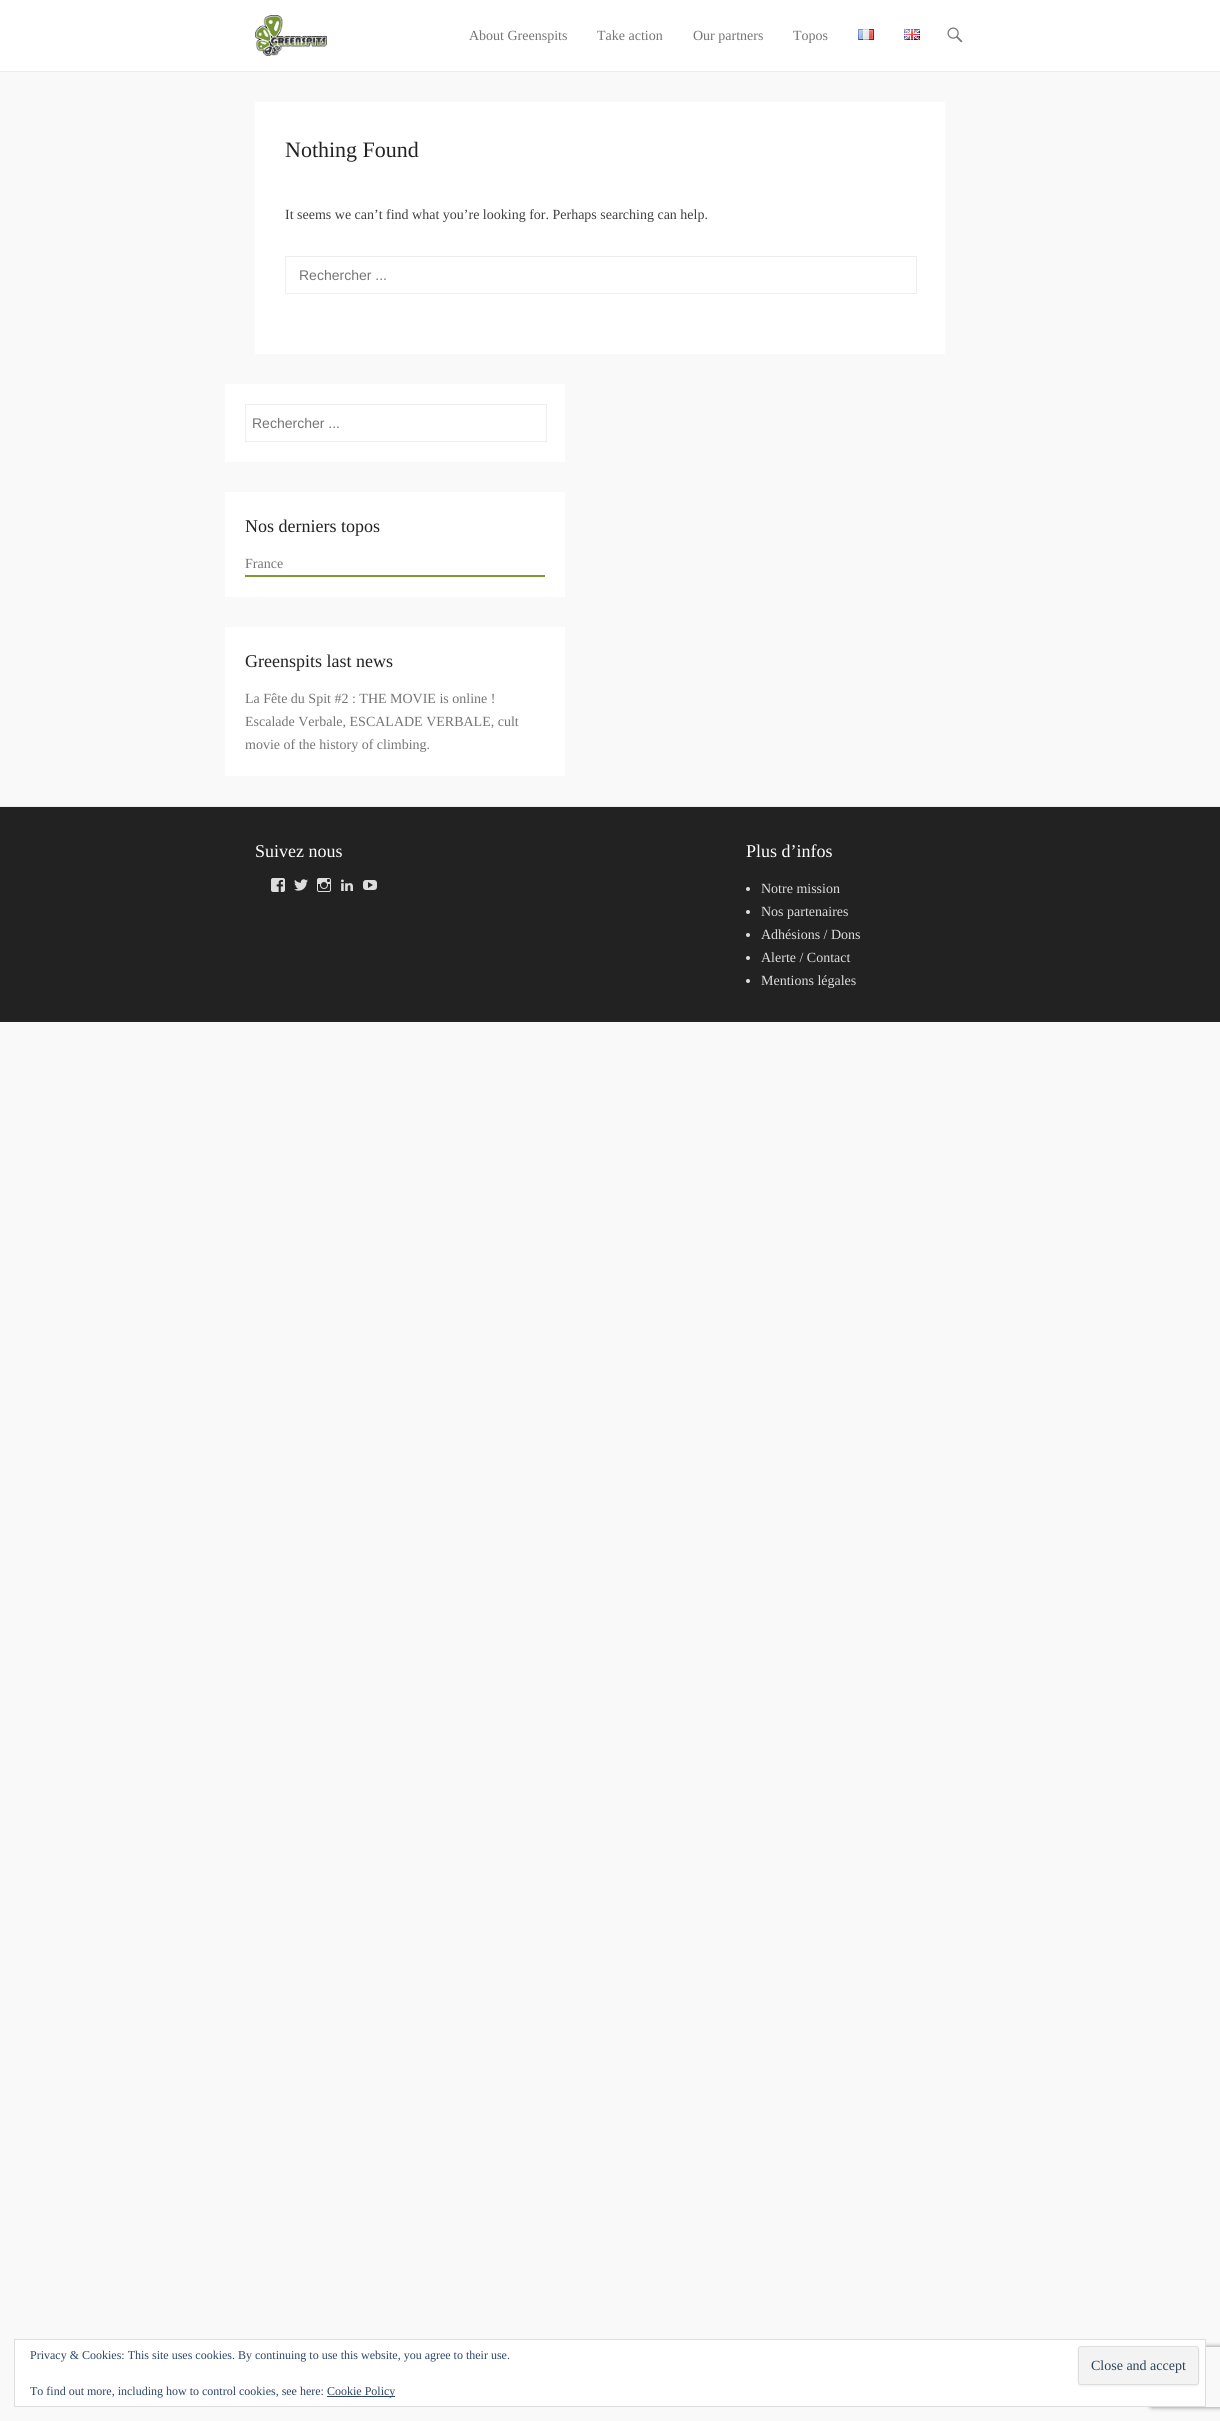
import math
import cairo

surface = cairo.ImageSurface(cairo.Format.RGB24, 1220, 2421)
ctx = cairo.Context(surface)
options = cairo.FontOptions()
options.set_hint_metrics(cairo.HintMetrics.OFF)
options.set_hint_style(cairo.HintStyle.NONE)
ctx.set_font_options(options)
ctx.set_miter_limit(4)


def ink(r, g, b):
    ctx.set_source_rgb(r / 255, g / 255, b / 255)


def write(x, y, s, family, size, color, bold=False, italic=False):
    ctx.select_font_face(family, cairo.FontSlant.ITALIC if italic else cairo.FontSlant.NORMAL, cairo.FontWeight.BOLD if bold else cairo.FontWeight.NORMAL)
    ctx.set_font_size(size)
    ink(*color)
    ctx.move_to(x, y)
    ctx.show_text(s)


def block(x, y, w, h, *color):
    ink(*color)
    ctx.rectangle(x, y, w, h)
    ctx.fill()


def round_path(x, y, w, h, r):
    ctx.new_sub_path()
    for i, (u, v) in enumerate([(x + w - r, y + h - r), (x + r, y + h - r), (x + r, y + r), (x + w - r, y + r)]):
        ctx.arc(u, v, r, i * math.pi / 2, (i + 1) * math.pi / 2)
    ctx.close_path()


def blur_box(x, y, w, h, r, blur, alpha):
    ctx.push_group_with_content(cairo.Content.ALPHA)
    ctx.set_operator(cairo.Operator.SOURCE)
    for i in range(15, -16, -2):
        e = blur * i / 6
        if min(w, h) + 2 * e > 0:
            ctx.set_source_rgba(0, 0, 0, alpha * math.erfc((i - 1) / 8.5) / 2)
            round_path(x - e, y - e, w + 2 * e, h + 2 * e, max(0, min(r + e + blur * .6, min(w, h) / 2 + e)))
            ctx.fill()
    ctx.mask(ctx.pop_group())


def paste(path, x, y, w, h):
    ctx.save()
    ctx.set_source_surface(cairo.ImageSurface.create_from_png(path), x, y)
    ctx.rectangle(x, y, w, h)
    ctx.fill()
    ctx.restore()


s1 = dict(family="Liberation Serif", size=14, color=(117, 117, 117))
s2 = dict(family="Liberation Serif", size=22, color=(34, 34, 34))
s3 = dict(family="Liberation Serif", size=14, color=(64, 64, 64))
s4 = dict(family="Liberation Sans", size=14, color=(117, 117, 117))
s5 = dict(family="Liberation Serif", size=18, color=(34, 34, 34))
s6 = dict(family="Liberation Serif", size=18, color=(255, 255, 255))
s7 = dict(family="Liberation Serif", size=14, color=(221, 221, 221))
s8 = dict(family="Liberation Serif", size=12, color=(46, 68, 103))
s9 = dict(family="Liberation Serif", size=14, color=(46, 68, 83))

ink(249, 249, 249)
ctx.paint()
block(0, 0, 1220, 71, 255, 255, 255)
block(0, 71, 1220, 1, 238, 238, 238)
paste("pic1.png", 255, 15, 72, 41)
write(469, 40, "About Greenspits", **s1)
write(597, 40, "Take action", **s1)
write(693, 40, "Our partners", **s1)
write(793, 40, "Topos", **s1)
paste("pic2.png", 858, 29, 16, 11)
paste("pic3.png", 904, 29, 16, 11)
paste("pic4.png", 947, 27, 16, 16)
block(255, 102, 690, 252, 255, 255, 255)
write(285, 157, "Nothing Found", **s2)
write(285, 219, "It seems we can’t find what you’re looking for. Perhaps searching can help.", **s3)
ctx.rectangle(285.5, 256.5, 631, 37)
ink(238, 238, 238)
ctx.set_line_width(1)
ctx.stroke()
write(299, 280, "Rechercher ...", **s4)
block(225, 384, 340, 78, 255, 255, 255)
ctx.rectangle(245.5, 404.5, 301, 37)
ink(238, 238, 238)
ctx.stroke()
write(252, 428, "Rechercher ...", **s4)
block(225, 492, 340, 105, 255, 255, 255)
write(245, 532, "Nos derniers topos", **s5)
block(245, 575, 300, 2, 124, 155, 48)
write(245, 568, "France", **s1)
block(225, 627, 340, 149, 255, 255, 255)
write(245, 667, "Greenspits last news", **s5)
write(245, 703, "La Fête du Spit #2 : THE MOVIE is online !", **s1)
write(245, 726, "Escalade Verbale, ESCALADE VERBALE, cult", **s1)
write(245, 749, "movie of the history of climbing.", **s1)
block(0, 806, 1220, 1, 238, 238, 238)
block(0, 807, 1220, 215, 34, 34, 34)
write(255, 857, "Suivez nous", **s6)
paste("pic5.png", 271, 878, 14, 14)
paste("pic6.png", 294, 879, 14, 12)
paste("pic7.png", 317, 878, 14, 14)
paste("pic8.png", 341, 879, 12, 12)
paste("pic9.png", 363, 880, 14, 10)
write(746, 857, "Plus d’infos", **s6)
ink(221, 221, 221)
ctx.new_path()
ctx.arc(748, 889, 2, 0, 2 * math.pi)
ctx.fill()
write(761, 893, "Notre mission", **s7)
ctx.new_path()
ctx.arc(748, 912, 2, 0, 2 * math.pi)
ctx.fill()
write(761, 916, "Nos partenaires", **s7)
ctx.new_path()
ctx.arc(748, 935, 2, 0, 2 * math.pi)
ctx.fill()
write(761, 939, "Adhésions / Dons", **s7)
ctx.new_path()
ctx.arc(748, 958, 2, 0, 2 * math.pi)
ctx.fill()
write(761, 962, "Alerte / Contact", **s7)
ctx.new_path()
ctx.arc(748, 981, 2, 0, 2 * math.pi)
ctx.fill()
write(761, 985, "Mentions légales", **s7)
ctx.save()
ctx.set_fill_rule(cairo.FillRule.EVEN_ODD)
ctx.new_path()
ctx.move_to(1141, 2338)
ctx.line_to(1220, 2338)
ctx.line_to(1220, 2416)
ctx.line_to(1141, 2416)
ctx.close_path()
ctx.move_to(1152, 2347)
ctx.line_to(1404, 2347)
ctx.curve_to(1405, 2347, 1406, 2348, 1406, 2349)
ctx.line_to(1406, 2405)
ctx.curve_to(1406, 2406, 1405, 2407, 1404, 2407)
ctx.line_to(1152, 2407)
ctx.curve_to(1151, 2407, 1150, 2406, 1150, 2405)
ctx.line_to(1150, 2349)
ctx.curve_to(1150, 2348, 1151, 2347, 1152, 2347)
ctx.close_path()
ctx.clip()
ink(128, 128, 128)
blur_box(1150, 2347, 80, 60, 2, 2.5, 1)
ctx.restore()
ink(255, 255, 255)
ctx.rectangle(14.5, 2339.5, 1191, 67)
ctx.fill_preserve()
ink(222, 222, 222)
ctx.stroke()
write(30, 2359, "Privacy & Cookies: This site uses cookies. By continuing to use this website, you agree to their use.", **s8)
ink(64, 64, 64)
blur_box(1078, 2347, 121, 39, 3, 1, 0.1)
ink(243, 243, 243)
round_path(1078.5, 2346.5, 120, 38, 2.5)
ctx.fill_preserve()
ink(222, 222, 222)
ctx.stroke()
write(1091, 2370, "Close and accept", **s9)
write(30, 2395, "To find out more, including how to control cookies, see here:", **s8)
block(327, 2396, 68, 1, 46, 68, 103)
write(327, 2395, "Cookie Policy", **s8)
surface.write_to_png("screenshot.png")
